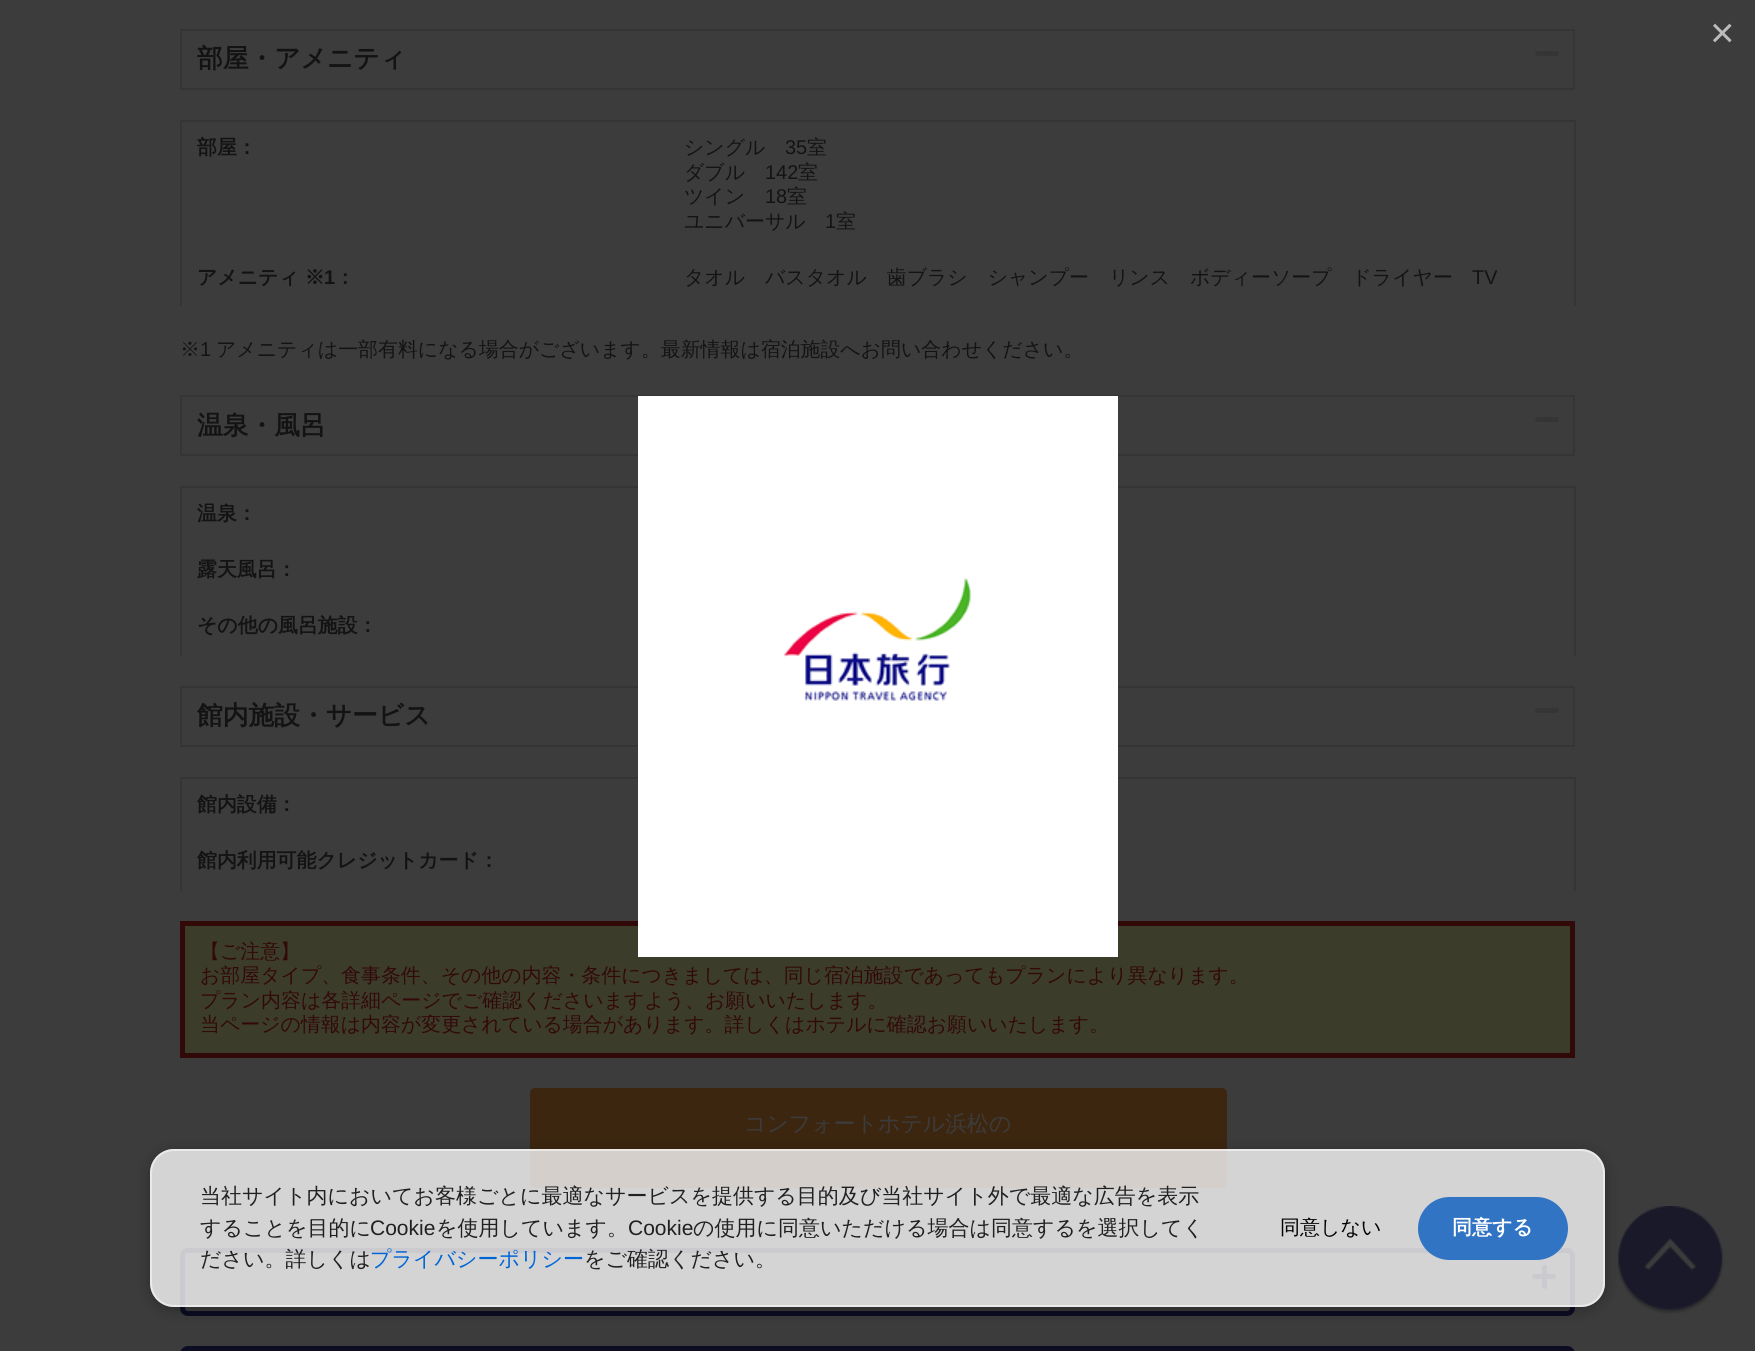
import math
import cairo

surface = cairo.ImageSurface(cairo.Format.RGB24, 1755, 1351)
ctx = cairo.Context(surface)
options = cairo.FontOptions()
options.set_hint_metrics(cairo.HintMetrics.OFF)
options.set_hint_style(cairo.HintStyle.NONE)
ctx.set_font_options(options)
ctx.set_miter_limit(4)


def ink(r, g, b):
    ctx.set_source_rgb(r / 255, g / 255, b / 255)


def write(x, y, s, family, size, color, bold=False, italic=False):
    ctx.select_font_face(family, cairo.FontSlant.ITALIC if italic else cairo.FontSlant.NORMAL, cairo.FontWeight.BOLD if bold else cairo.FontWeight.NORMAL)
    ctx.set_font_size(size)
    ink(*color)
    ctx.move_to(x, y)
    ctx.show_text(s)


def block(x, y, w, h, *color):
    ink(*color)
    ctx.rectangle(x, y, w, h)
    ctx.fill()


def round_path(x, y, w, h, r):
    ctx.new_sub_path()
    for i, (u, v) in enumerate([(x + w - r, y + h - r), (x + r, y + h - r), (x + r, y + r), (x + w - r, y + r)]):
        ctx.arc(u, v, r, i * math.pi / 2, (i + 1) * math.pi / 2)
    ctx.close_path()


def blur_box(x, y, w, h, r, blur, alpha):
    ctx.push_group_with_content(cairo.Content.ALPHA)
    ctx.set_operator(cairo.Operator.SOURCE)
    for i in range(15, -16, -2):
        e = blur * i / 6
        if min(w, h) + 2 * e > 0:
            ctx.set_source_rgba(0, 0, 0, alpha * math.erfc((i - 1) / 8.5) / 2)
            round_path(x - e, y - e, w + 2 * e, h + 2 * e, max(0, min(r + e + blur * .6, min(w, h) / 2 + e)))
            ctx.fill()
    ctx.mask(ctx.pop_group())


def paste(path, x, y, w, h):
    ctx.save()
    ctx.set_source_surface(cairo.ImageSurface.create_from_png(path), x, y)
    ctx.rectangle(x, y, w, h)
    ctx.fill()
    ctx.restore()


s1 = dict(family="Liberation Sans", size=42, color=(187, 187, 187))
s2 = dict(family="WenQuanYi Zen Hei", size=25.75, color=(19, 19, 19), bold=True)
s3 = dict(family="WenQuanYi Zen Hei", size=19.9, color=(19, 19, 19), bold=True)
s4 = dict(family="WenQuanYi Zen Hei Medium", size=19.9, color=(19, 19, 19))
s5 = dict(family="Liberation Sans", size=19.9, color=(19, 19, 19))
s6 = dict(family="Liberation Sans", size=19.9, color=(19, 19, 19), bold=True)
s7 = dict(family="WenQuanYi Zen Hei Medium", size=19.9, color=(50, 9, 9))
s8 = dict(family="WenQuanYi Zen Hei Medium", size=21.9, color=(60, 60, 60))
s9 = dict(family="WenQuanYi Zen Hei Medium", size=21, color=(32, 32, 32))
s10 = dict(family="Liberation Sans", size=21, color=(32, 32, 32))
s11 = dict(family="WenQuanYi Zen Hei Medium", size=21, color=(0, 101, 214))
s12 = dict(family="WenQuanYi Zen Hei Medium", size=20, color=(0, 0, 0))
s13 = dict(family="WenQuanYi Zen Hei", size=20, color=(255, 255, 255), bold=True)

ink(60, 60, 60)
ctx.paint()
write(1710, 47, "×", **s1)
ctx.rectangle(181, 396, 1393, 59)
ink(53, 53, 53)
ctx.stroke()
block(180, 486, 1395, 2, 53, 53, 53)
ctx.rectangle(181, 687, 1393, 59)
ctx.stroke()
block(180, 777, 1395, 2, 53, 53, 53)
ink(60, 60, 43)
ctx.rectangle(182.5, 923.5, 1390, 132)
ctx.fill_preserve()
ink(50, 9, 9)
ctx.set_line_width(5)
ctx.stroke()
block(638, 396, 480, 561, 255, 255, 255)
paste("pic1.png", 783, 577, 188, 124)
ctx.rectangle(181, 30, 1393, 59)
ink(53, 53, 53)
ctx.set_line_width(2)
ctx.stroke()
write(197, 67, "部屋・アメニティ", **s2)
ink(53, 53, 53)
round_path(1535, 51, 24, 5, 2.5)
ctx.fill()
block(180, 120, 1395, 2, 53, 53, 53)
block(1574, 120, 2, 186, 53, 53, 53)
block(180, 120, 2, 186, 53, 53, 53)
write(197, 154, "部屋：", **s3)
write(684, 154, "シングル", **s4)
write(785, 154, "35", **s5)
write(807, 154, "室", **s4)
write(684, 179, "ダブル", **s4)
write(765, 179, "142", **s5)
write(798, 179, "室", **s4)
write(684, 203, "ツイン", **s4)
write(765, 203, "18", **s5)
write(787, 203, "室", **s4)
write(684, 228, "ユニバーサル", **s4)
write(825, 228, "1", **s5)
write(836, 228, "室", **s4)
write(197, 284, "アメニティ ※", **s3)
write(324, 284, "1", **s6)
write(335, 284, "：", **s3)
write(684, 284, "タオル　バスタオル　歯ブラシ　シャンプー　リンス　ボディーソープ　ドライヤー", **s4)
write(1472, 284, "TV", **s5)
write(180, 356, "※", **s4)
write(200, 356, "1", **s5)
write(216, 356, "アメニティは一部有料になる場合がございます。最新情報は宿泊施設へお問い合わせください。", **s4)
write(197, 434, "温泉・風呂", **s2)
ink(53, 53, 53)
round_path(1535, 417, 24, 5, 2.5)
ctx.fill()
block(1574, 486, 2, 170, 53, 53, 53)
block(180, 486, 2, 170, 53, 53, 53)
write(197, 520, "温泉：", **s3)
write(197, 576, "露天風呂：", **s3)
write(197, 632, "その他の風呂施設：", **s3)
write(197, 724, "館内施設・サービス", **s2)
ink(53, 53, 53)
round_path(1535, 708, 24, 5, 2.5)
ctx.fill()
block(1574, 777, 2, 114, 53, 53, 53)
block(180, 777, 2, 114, 53, 53, 53)
write(197, 811, "館内設備：", **s3)
write(197, 867, "館内利用可能クレジットカード：", **s3)
write(200, 958, "【ご注意】", **s7)
write(200, 982, "お部屋タイプ、食事条件、その他の内容・条件につきましては、同じ宿泊施設であってもプランにより異なります。", **s7)
write(200, 1007, "プラン内容は各詳細ページでご確認くださいますよう、お願いいたします。", **s7)
write(200, 1031, "当ページの情報は内容が変更されている場合があります。詳しくはホテルに確認お願いいたします。", **s7)
ink(60, 38, 16)
round_path(531, 1089, 695, 98, 4)
ctx.fill_preserve()
ctx.stroke()
write(744, 1131, "コンフォートホテル浜松の", **s8)
round_path(182.5, 1250.5, 1390, 63, 5.5)
ink(12, 12, 35)
ctx.set_line_width(5)
ctx.stroke()
round_path(1532, 1274, 24, 5, 2.5)
ctx.fill()
round_path(1542, 1265, 5, 24, 2.5)
ctx.fill()
round_path(182.5, 1348.5, 1390, 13, 5.5)
ctx.stroke()
paste("pic2.png", 1617, 1206, 107, 108)
ctx.save()
ctx.set_fill_rule(cairo.FillRule.EVEN_ODD)
ctx.new_path()
ctx.move_to(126, 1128)
ctx.line_to(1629, 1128)
ctx.line_to(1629, 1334)
ctx.line_to(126, 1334)
ctx.close_path()
ctx.move_to(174, 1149)
ctx.line_to(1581, 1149)
ctx.curve_to(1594.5, 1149, 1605, 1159.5, 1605, 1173)
ctx.line_to(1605, 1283)
ctx.curve_to(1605, 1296.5, 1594.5, 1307, 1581, 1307)
ctx.line_to(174, 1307)
ctx.curve_to(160.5, 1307, 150, 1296.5, 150, 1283)
ctx.line_to(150, 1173)
ctx.curve_to(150, 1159.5, 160.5, 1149, 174, 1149)
ctx.close_path()
ctx.clip()
ink(0, 0, 0)
blur_box(150, 1152, 1455, 158, 24, 7.5, 0.3)
ctx.restore()
ctx.set_source_rgba(1, 1, 1, 0.78)
round_path(150, 1149, 1455, 158, 24)
ctx.fill()
round_path(151, 1150, 1453, 156, 23)
ctx.set_source_rgba(1, 1, 1, 0.5)
ctx.set_line_width(2)
ctx.stroke()
write(200, 1203, "当社サイト内においてお客様ごとに最適なサービスを提供する目的及び当社サイト外で最適な広告を表示", **s9)
write(200, 1235, "することを目的に", **s9)
write(370, 1235, "Cookie", **s10)
write(436, 1235, "を使用しています。", **s9)
write(628, 1235, "Cookie", **s10)
write(693, 1235, "の使用に同意いただける場合は同意するを選択してく", **s9)
write(200, 1266, "ださい。詳しくは", **s9)
write(370, 1266, "プライバシーポリシー", **s11)
write(584, 1266, "をご確認ください。", **s9)
write(1280, 1234, "同意しない", **s12)
ink(49, 116, 195)
round_path(1418, 1197, 150, 63, 31.5)
ctx.fill()
write(1452, 1234, "同意する", **s13)
surface.write_to_png("screenshot.png")
